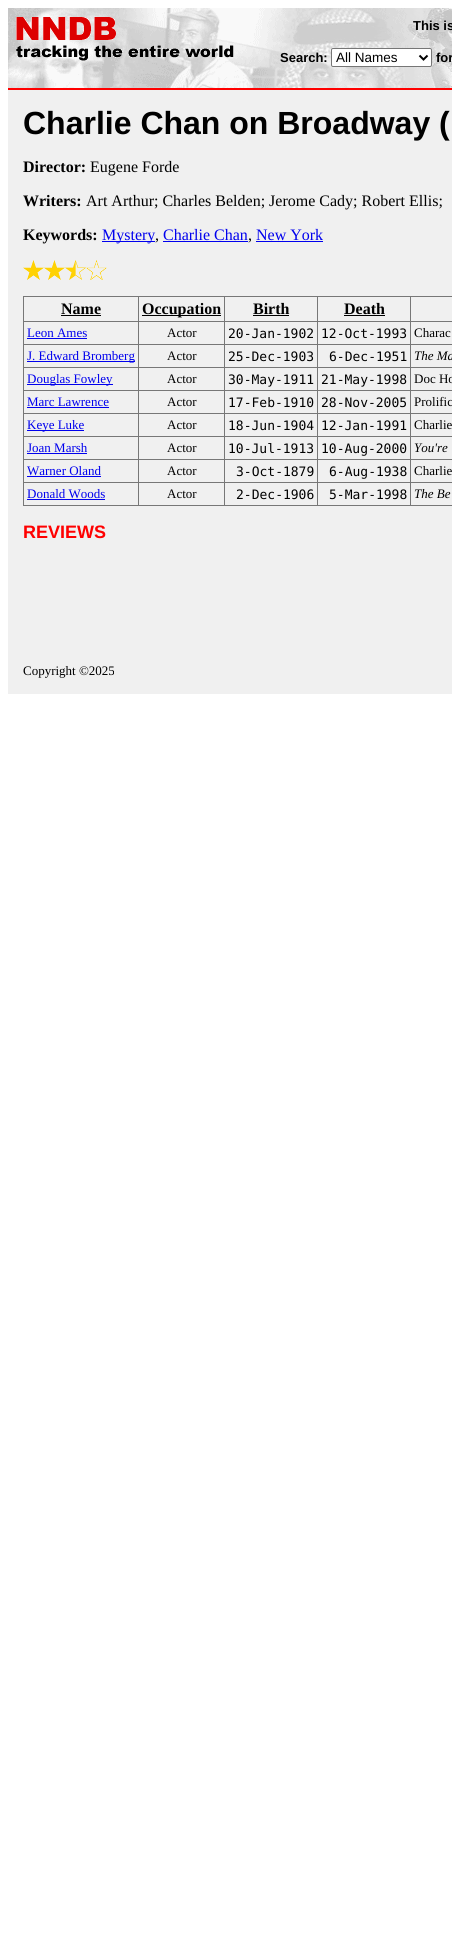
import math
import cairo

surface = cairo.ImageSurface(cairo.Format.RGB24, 452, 1951)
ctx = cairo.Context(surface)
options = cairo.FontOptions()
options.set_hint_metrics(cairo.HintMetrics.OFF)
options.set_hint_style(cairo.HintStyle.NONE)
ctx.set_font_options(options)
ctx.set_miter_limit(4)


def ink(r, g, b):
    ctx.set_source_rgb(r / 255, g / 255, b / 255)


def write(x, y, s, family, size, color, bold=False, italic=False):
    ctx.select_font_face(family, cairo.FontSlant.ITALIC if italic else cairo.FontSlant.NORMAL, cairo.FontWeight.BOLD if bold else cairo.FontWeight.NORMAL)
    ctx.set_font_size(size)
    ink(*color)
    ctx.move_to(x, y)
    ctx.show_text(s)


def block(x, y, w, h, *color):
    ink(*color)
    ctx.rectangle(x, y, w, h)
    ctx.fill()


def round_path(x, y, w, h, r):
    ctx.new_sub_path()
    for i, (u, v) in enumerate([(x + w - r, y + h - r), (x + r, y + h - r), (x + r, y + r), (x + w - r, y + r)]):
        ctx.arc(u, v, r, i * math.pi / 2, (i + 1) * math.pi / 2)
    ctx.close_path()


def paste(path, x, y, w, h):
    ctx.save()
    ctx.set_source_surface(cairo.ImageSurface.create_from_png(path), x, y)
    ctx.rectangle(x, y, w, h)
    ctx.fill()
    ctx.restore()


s1 = dict(family="Liberation Sans", size=13, color=(0, 0, 0), bold=True)
s2 = dict(family="Liberation Sans", size=13.5, color=(0, 0, 0))
s3 = dict(family="Liberation Sans", size=32, color=(0, 0, 0), bold=True)
s4 = dict(family="Liberation Serif", size=16, color=(0, 0, 0), bold=True)
s5 = dict(family="Liberation Serif", size=16, color=(0, 0, 0))
s6 = dict(family="Liberation Serif", size=16, color=(0, 0, 238))
s7 = dict(family="Liberation Serif", size=13, color=(0, 0, 238))
s8 = dict(family="Liberation Serif", size=13, color=(0, 0, 0))
s9 = dict(family="DejaVu Sans Mono", size=13, color=(0, 0, 0))
s10 = dict(family="Liberation Serif", size=13, color=(0, 0, 0), italic=True)
s11 = dict(family="Liberation Sans", size=18, color=(255, 0, 0), bold=True)

ink(255, 255, 255)
ctx.paint()
paste("pic1.png", 8, 8, 444, 80)
paste("pic2.png", 16, 17, 218, 44)
write(413, 30, "This is", **s1)
write(280, 62, "Search:", **s1)
ink(255, 255, 255)
round_path(331.5, 48.5, 100, 18, 1.5)
ctx.fill_preserve()
ink(118, 118, 118)
ctx.set_line_width(1)
ctx.stroke()
ctx.new_path()
ctx.move_to(419.5, 55.5)
ctx.line_to(423.5, 59.5)
ctx.line_to(427.5, 55.5)
ink(0, 0, 0)
ctx.set_line_width(2)
ctx.stroke()
write(336, 62, "All Names", **s2)
write(436, 62, "for", **s1)
block(8, 88, 444, 2, 255, 0, 0)
block(8, 90, 444, 604, 240, 240, 240)
write(23, 134, "Charlie Chan on Broadway (", **s3)
write(23, 172, "Director:", **s4)
write(90, 172, "Eugene Forde", **s5)
write(23, 206, "Writers:", **s4)
write(86, 206, "Art Arthur; Charles Belden; Jerome Cady; Robert Ellis;", **s5)
write(23, 240, "Keywords:", **s4)
block(102, 241, 53, 1, 0, 0, 238)
write(102, 240, "Mystery", **s6)
write(155, 240, ",", **s5)
write(163, 240, "Charlie Chan", **s6)
block(163, 241, 85, 1, 0, 0, 238)
write(248, 240, ",", **s5)
write(256, 240, "New York", **s6)
block(256, 241, 67, 1, 0, 0, 238)
paste("pic3.png", 23, 260, 21, 20)
paste("pic3.png", 44, 260, 21, 20)
paste("pic4.png", 65, 260, 21, 20)
paste("pic5.png", 86, 260, 21, 20)
block(23, 296, 429, 1, 119, 119, 119)
block(23, 505, 429, 1, 119, 119, 119)
block(23, 296, 1, 210, 119, 119, 119)
write(61, 314, "Name", **s4)
block(61, 315, 40, 1, 0, 0, 0)
block(410, 321, 42, 1, 119, 119, 119)
block(410, 344, 42, 1, 119, 119, 119)
block(410, 367, 42, 1, 119, 119, 119)
block(410, 390, 42, 1, 119, 119, 119)
block(410, 413, 42, 1, 119, 119, 119)
block(410, 436, 42, 1, 119, 119, 119)
block(410, 459, 42, 1, 119, 119, 119)
block(410, 482, 42, 1, 119, 119, 119)
block(410, 482, 1, 24, 119, 119, 119)
block(317, 482, 94, 1, 119, 119, 119)
block(410, 459, 1, 24, 119, 119, 119)
block(317, 459, 94, 1, 119, 119, 119)
block(410, 436, 1, 24, 119, 119, 119)
block(317, 436, 94, 1, 119, 119, 119)
block(410, 413, 1, 24, 119, 119, 119)
block(317, 413, 94, 1, 119, 119, 119)
block(410, 390, 1, 24, 119, 119, 119)
block(317, 390, 94, 1, 119, 119, 119)
block(410, 367, 1, 24, 119, 119, 119)
block(317, 367, 94, 1, 119, 119, 119)
block(410, 344, 1, 24, 119, 119, 119)
block(317, 344, 94, 1, 119, 119, 119)
block(410, 321, 1, 24, 119, 119, 119)
block(317, 321, 94, 1, 119, 119, 119)
block(317, 482, 1, 24, 119, 119, 119)
block(224, 482, 94, 1, 119, 119, 119)
block(317, 459, 1, 24, 119, 119, 119)
block(224, 459, 94, 1, 119, 119, 119)
block(317, 436, 1, 24, 119, 119, 119)
block(224, 436, 94, 1, 119, 119, 119)
block(317, 413, 1, 24, 119, 119, 119)
block(224, 413, 94, 1, 119, 119, 119)
block(317, 390, 1, 24, 119, 119, 119)
block(224, 390, 94, 1, 119, 119, 119)
block(317, 367, 1, 24, 119, 119, 119)
block(224, 367, 94, 1, 119, 119, 119)
block(317, 344, 1, 24, 119, 119, 119)
block(224, 344, 94, 1, 119, 119, 119)
block(317, 321, 1, 24, 119, 119, 119)
block(224, 321, 94, 1, 119, 119, 119)
block(224, 482, 1, 24, 119, 119, 119)
block(138, 482, 87, 1, 119, 119, 119)
block(224, 459, 1, 24, 119, 119, 119)
block(138, 459, 87, 1, 119, 119, 119)
block(224, 436, 1, 24, 119, 119, 119)
block(138, 436, 87, 1, 119, 119, 119)
block(224, 413, 1, 24, 119, 119, 119)
block(138, 413, 87, 1, 119, 119, 119)
block(224, 390, 1, 24, 119, 119, 119)
block(138, 390, 87, 1, 119, 119, 119)
block(224, 367, 1, 24, 119, 119, 119)
block(138, 367, 87, 1, 119, 119, 119)
block(224, 344, 1, 24, 119, 119, 119)
block(138, 344, 87, 1, 119, 119, 119)
block(224, 321, 1, 24, 119, 119, 119)
block(138, 321, 87, 1, 119, 119, 119)
block(138, 482, 1, 24, 119, 119, 119)
block(23, 482, 116, 1, 119, 119, 119)
block(138, 459, 1, 24, 119, 119, 119)
block(23, 459, 116, 1, 119, 119, 119)
block(138, 436, 1, 24, 119, 119, 119)
block(23, 436, 116, 1, 119, 119, 119)
block(138, 413, 1, 24, 119, 119, 119)
block(23, 413, 116, 1, 119, 119, 119)
block(138, 390, 1, 24, 119, 119, 119)
block(23, 390, 116, 1, 119, 119, 119)
block(138, 367, 1, 24, 119, 119, 119)
block(23, 367, 116, 1, 119, 119, 119)
block(138, 344, 1, 24, 119, 119, 119)
block(23, 344, 116, 1, 119, 119, 119)
block(138, 321, 1, 24, 119, 119, 119)
block(23, 321, 116, 1, 119, 119, 119)
block(138, 296, 1, 26, 119, 119, 119)
block(142, 315, 79, 1, 0, 0, 0)
write(142, 314, "Occupation", **s4)
block(224, 296, 1, 26, 119, 119, 119)
write(253, 314, "Birth", **s4)
block(253, 315, 36, 1, 0, 0, 0)
block(317, 296, 1, 26, 119, 119, 119)
write(344, 314, "Death", **s4)
block(344, 315, 41, 1, 0, 0, 0)
block(410, 296, 1, 26, 119, 119, 119)
write(27, 337, "Leon Ames", **s7)
block(27, 338, 60, 1, 0, 0, 238)
write(167, 337, "Actor", **s8)
write(228, 338, "20-Jan-1902", **s9)
write(321, 338, "12-Oct-1993", **s9)
write(414, 337, "Charac", **s8)
block(27, 361, 108, 1, 0, 0, 238)
write(27, 360, "J. Edward Bromberg", **s7)
write(167, 360, "Actor", **s8)
write(228, 361, "25-Dec-1903", **s9)
write(329, 361, "6-Dec-1951", **s9)
write(414, 360, "The Ma", **s10)
block(27, 384, 86, 1, 0, 0, 238)
write(27, 383, "Douglas Fowley", **s7)
write(167, 383, "Actor", **s8)
write(228, 384, "30-May-1911", **s9)
write(321, 384, "21-May-1998", **s9)
write(414, 383, "Doc Ho", **s8)
write(27, 406, "Marc Lawrence", **s7)
block(27, 407, 82, 1, 0, 0, 238)
write(167, 406, "Actor", **s8)
write(228, 407, "17-Feb-1910", **s9)
write(321, 407, "28-Nov-2005", **s9)
write(414, 406, "Prolific", **s8)
block(27, 430, 57, 1, 0, 0, 238)
write(27, 429, "Keye Luke", **s7)
write(167, 429, "Actor", **s8)
write(228, 430, "18-Jun-1904", **s9)
write(321, 430, "12-Jan-1991", **s9)
write(414, 429, "Charlie", **s8)
write(27, 452, "Joan Marsh", **s7)
block(27, 453, 60, 1, 0, 0, 238)
write(167, 452, "Actor", **s8)
write(228, 453, "10-Jul-1913", **s9)
write(321, 453, "10-Aug-2000", **s9)
write(414, 452, "You're", **s10)
write(27, 475, "Warner Oland", **s7)
block(27, 476, 74, 1, 0, 0, 238)
write(167, 475, "Actor", **s8)
write(236, 476, "3-Oct-1879", **s9)
write(329, 476, "6-Aug-1938", **s9)
write(414, 475, "Charlie", **s8)
write(27, 498, "Donald Woods", **s7)
block(27, 499, 78, 1, 0, 0, 238)
write(167, 498, "Actor", **s8)
write(236, 499, "2-Dec-1906", **s9)
write(329, 499, "5-Mar-1998", **s9)
write(414, 498, "The Be", **s10)
write(23, 538, "REVIEWS", **s11)
write(23, 675, "Copyright ©2025", **s8)
surface.write_to_png("screenshot.png")
